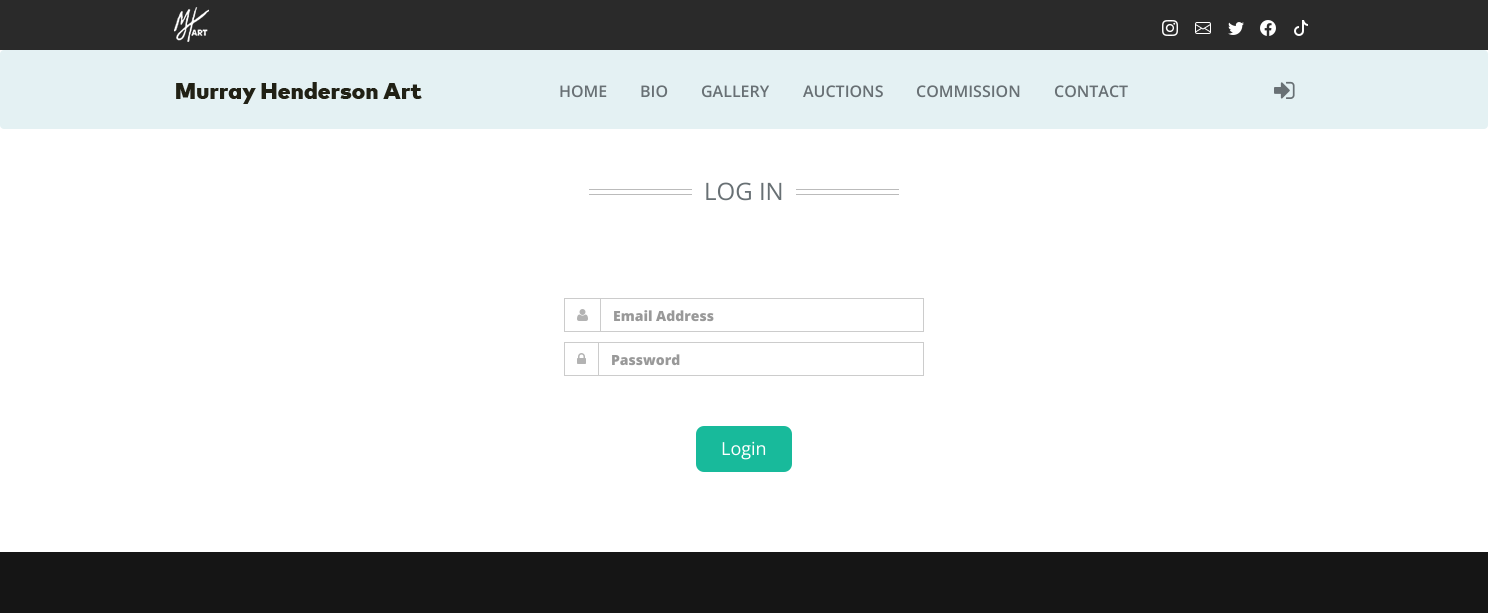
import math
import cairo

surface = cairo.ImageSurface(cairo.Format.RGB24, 1488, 613)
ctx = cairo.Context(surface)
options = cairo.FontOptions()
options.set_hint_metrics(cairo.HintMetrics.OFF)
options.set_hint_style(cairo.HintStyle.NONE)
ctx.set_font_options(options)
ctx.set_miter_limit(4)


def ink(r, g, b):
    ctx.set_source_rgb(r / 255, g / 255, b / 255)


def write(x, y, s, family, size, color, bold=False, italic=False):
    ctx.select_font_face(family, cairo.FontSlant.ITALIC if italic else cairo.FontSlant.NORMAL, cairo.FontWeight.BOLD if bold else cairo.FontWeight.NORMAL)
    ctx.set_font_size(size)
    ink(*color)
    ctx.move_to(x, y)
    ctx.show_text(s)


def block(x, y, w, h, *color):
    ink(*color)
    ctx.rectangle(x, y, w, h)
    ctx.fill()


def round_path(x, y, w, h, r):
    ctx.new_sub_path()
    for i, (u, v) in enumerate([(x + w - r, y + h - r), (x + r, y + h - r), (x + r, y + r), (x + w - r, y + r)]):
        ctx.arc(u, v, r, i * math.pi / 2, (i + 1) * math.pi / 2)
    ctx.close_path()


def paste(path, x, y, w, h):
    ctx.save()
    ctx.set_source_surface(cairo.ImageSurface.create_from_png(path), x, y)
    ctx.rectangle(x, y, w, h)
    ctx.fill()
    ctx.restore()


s1 = dict(family="Open Sans SemiBold", size=16, color=(104, 112, 116))
s2 = dict(family="Open Sans", size=24, color=(104, 112, 116))
s3 = dict(family="Open Sans ExtraBold", size=14, color=(153, 153, 153))
s4 = dict(family="Open Sans", size=18, color=(255, 255, 255))

ink(255, 255, 255)
ctx.paint()
block(0, 0, 1488, 50, 42, 42, 42)
paste("pic1.png", 174, 7, 35, 35)
paste("pic2.png", 1162, 20, 16, 16)
paste("pic3.png", 1195, 22, 16, 12)
paste("pic4.png", 1228, 22, 16, 13)
paste("pic5.png", 1260, 20, 16, 16)
paste("pic6.png", 1294, 20, 14, 16)
ink(228, 241, 243)
round_path(0, 50, 1488, 79, 4)
ctx.fill()
paste("pic7.png", 176, 82, 246, 22)
write(559, 97, "HOME", **s1)
write(640, 97, "BIO", **s1)
write(701, 97, "GALLERY", **s1)
write(803, 97, "AUCTIONS", **s1)
write(916, 97, "COMMISSION", **s1)
write(1054, 97, "CONTACT", **s1)
paste("pic8.png", 1274, 81, 21, 18)
block(589, 189, 103, 1, 187, 187, 187)
block(589, 194, 103, 1, 187, 187, 187)
write(704, 200, "LOG IN", **s2)
block(796, 189, 103, 1, 187, 187, 187)
block(796, 194, 103, 1, 187, 187, 187)
block(564, 298, 36, 1, 204, 204, 204)
block(564, 331, 36, 1, 204, 204, 204)
block(564, 298, 1, 34, 204, 204, 204)
paste("pic9.png", 577, 309, 11, 12)
ctx.rectangle(600.5, 298.5, 323, 33)
ctx.set_line_width(1)
ctx.stroke()
write(613, 321, "Email Address", **s3)
block(564, 342, 34, 1, 204, 204, 204)
block(564, 375, 34, 1, 204, 204, 204)
block(564, 342, 1, 34, 204, 204, 204)
paste("pic10.png", 577, 353, 9, 11)
ctx.rectangle(598.5, 342.5, 325, 33)
ctx.stroke()
write(611, 365, "Password", **s3)
ink(24, 186, 155)
round_path(696, 426, 96, 46, 8)
ctx.fill()
write(721, 455, "Login", **s4)
block(0, 552, 1488, 61, 21, 21, 21)
surface.write_to_png("screenshot.png")
